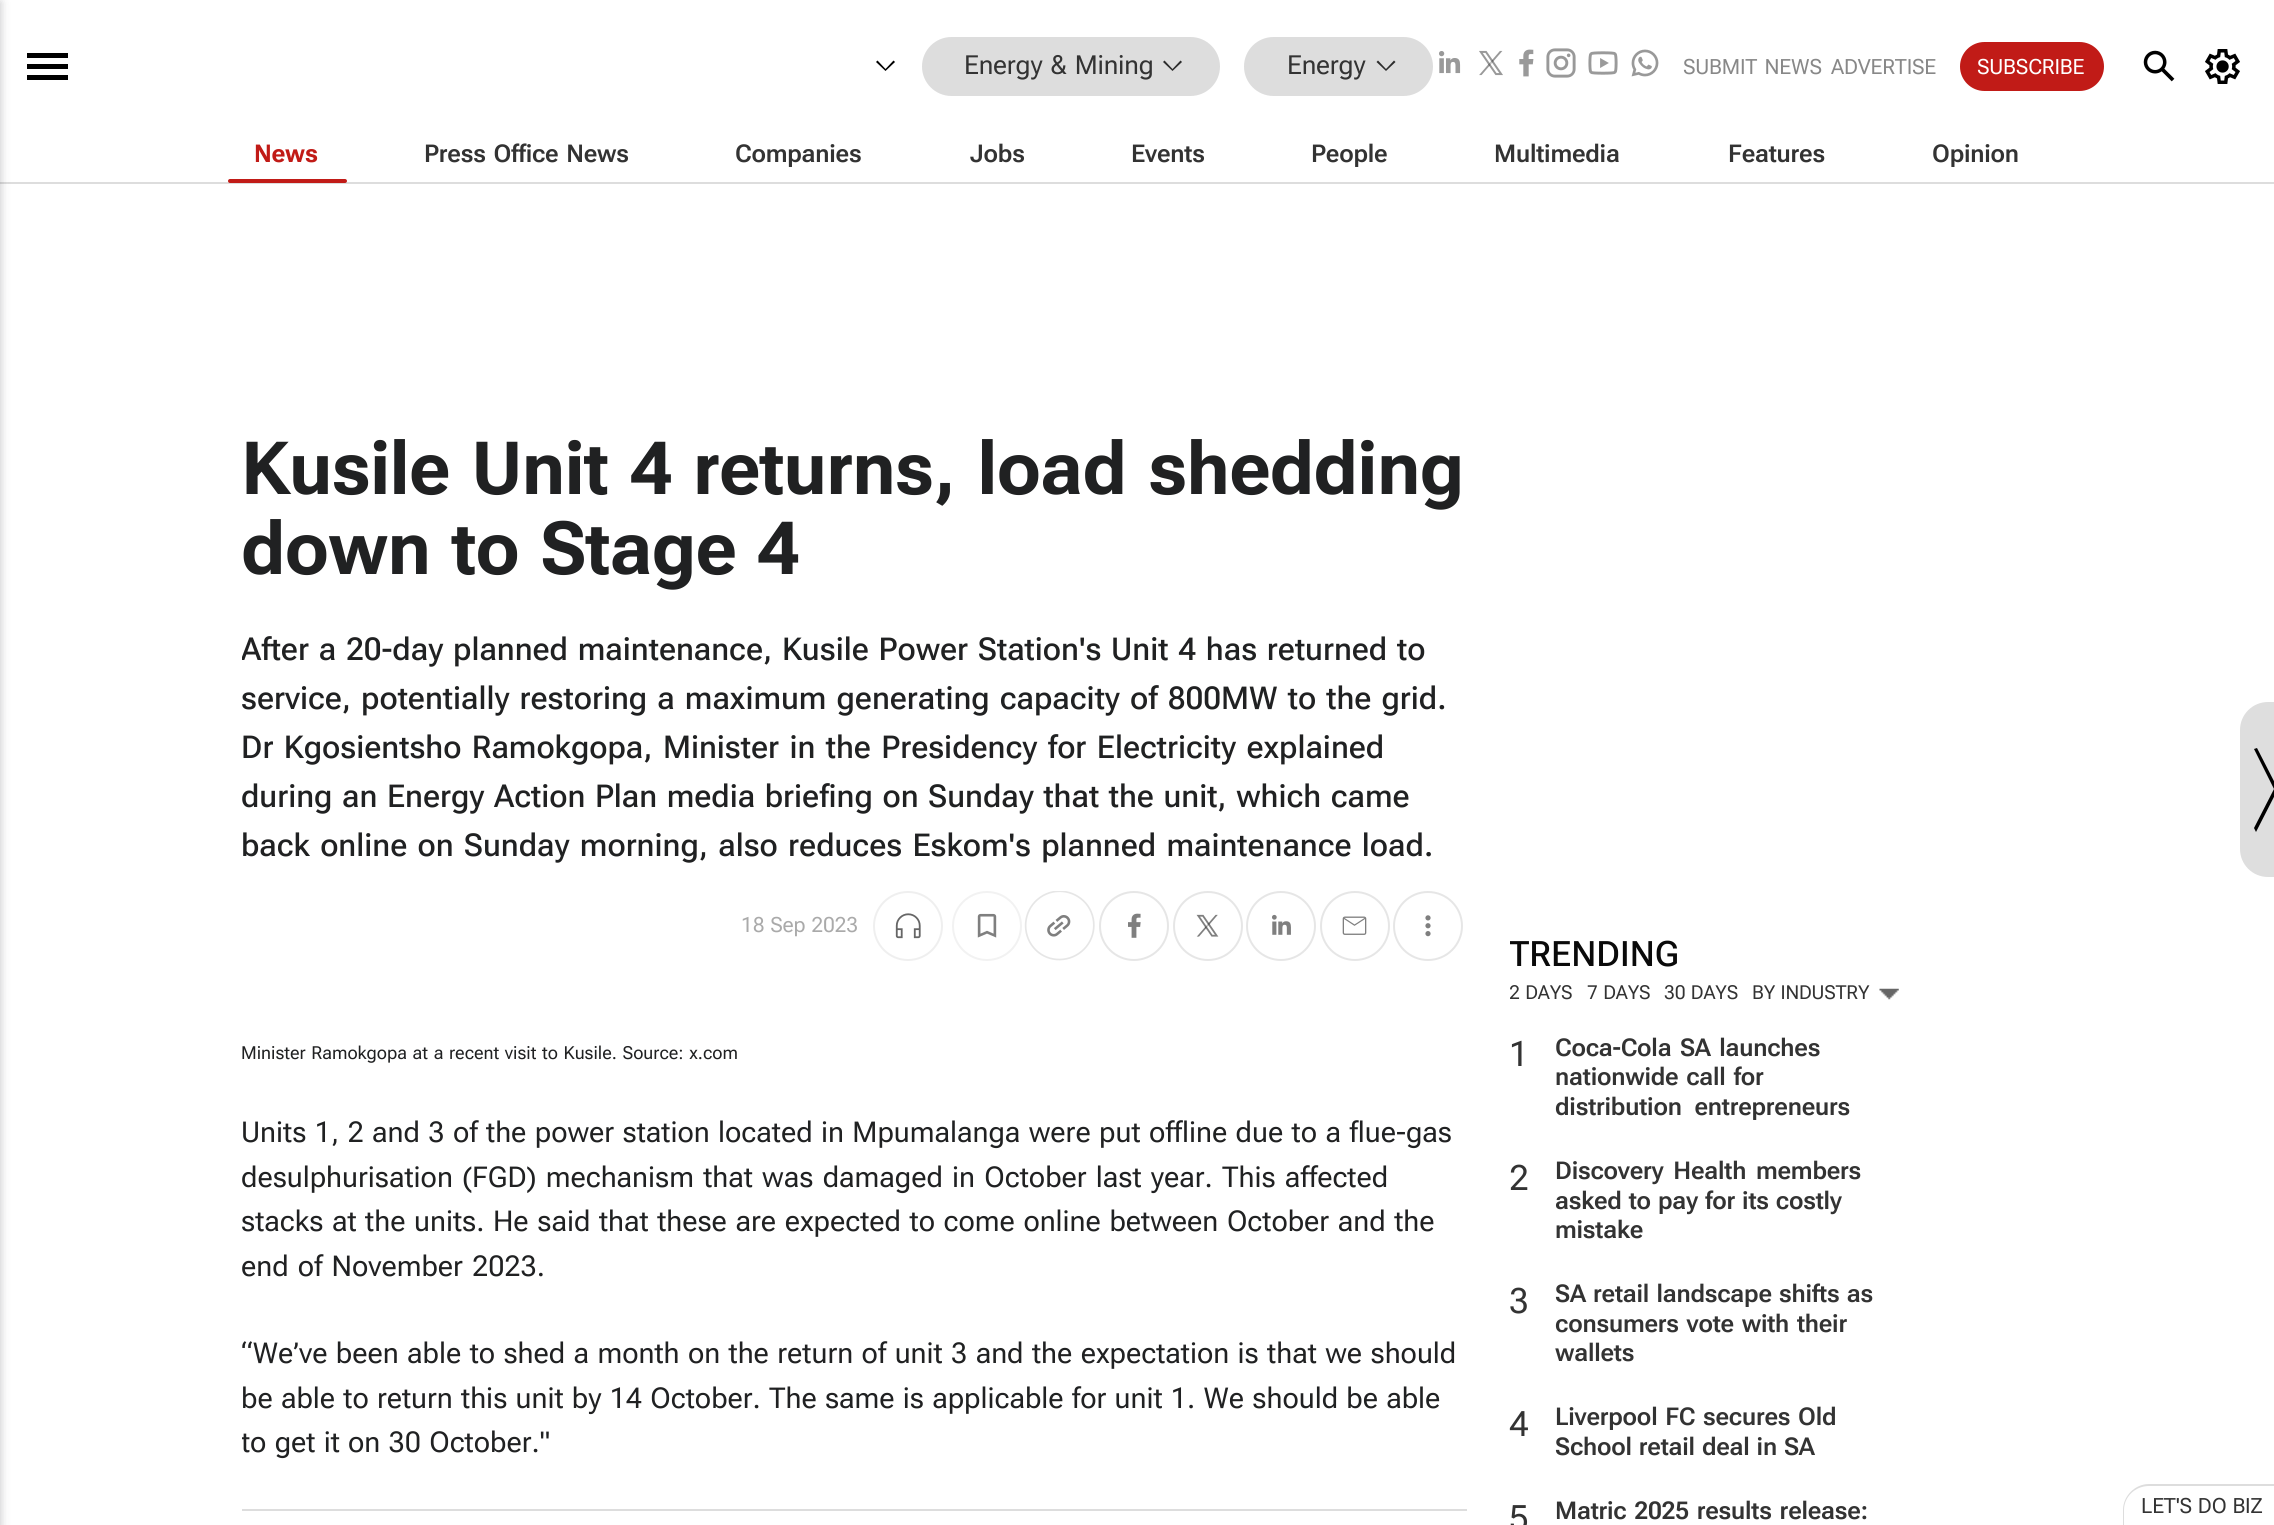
import math
import cairo

surface = cairo.ImageSurface(cairo.Format.RGB24, 2274, 1525)
ctx = cairo.Context(surface)
options = cairo.FontOptions()
options.set_hint_metrics(cairo.HintMetrics.OFF)
options.set_hint_style(cairo.HintStyle.NONE)
ctx.set_font_options(options)
ctx.set_miter_limit(4)


def ink(r, g, b):
    ctx.set_source_rgb(r / 255, g / 255, b / 255)


def write(x, y, s, family, size, color, bold=False, italic=False):
    ctx.select_font_face(family, cairo.FontSlant.ITALIC if italic else cairo.FontSlant.NORMAL, cairo.FontWeight.BOLD if bold else cairo.FontWeight.NORMAL)
    ctx.set_font_size(size)
    ink(*color)
    ctx.move_to(x, y)
    ctx.show_text(s)


def write_spaced(x, y, s, letter, word):
    ctx.move_to(x, y)
    for ch in s:
        ctx.show_text(ch)
        ctx.rel_move_to(letter + word * (ch == ' '), 0)


def block(x, y, w, h, *color):
    ink(*color)
    ctx.rectangle(x, y, w, h)
    ctx.fill()


def round_path(x, y, w, h, r):
    ctx.new_sub_path()
    for i, (u, v) in enumerate([(x + w - r, y + h - r), (x + r, y + h - r), (x + r, y + r), (x + w - r, y + r)]):
        ctx.arc(u, v, r, i * math.pi / 2, (i + 1) * math.pi / 2)
    ctx.close_path()


def blur_box(x, y, w, h, r, blur, alpha):
    ctx.push_group_with_content(cairo.Content.ALPHA)
    ctx.set_operator(cairo.Operator.SOURCE)
    for i in range(15, -16, -2):
        e = blur * i / 6
        if min(w, h) + 2 * e > 0:
            ctx.set_source_rgba(0, 0, 0, alpha * math.erfc((i - 1) / 8.5) / 2)
            round_path(x - e, y - e, w + 2 * e, h + 2 * e, max(0, min(r + e + blur * .6, min(w, h) / 2 + e)))
            ctx.fill()
    ctx.mask(ctx.pop_group())


def paste(path, x, y, w, h):
    ctx.save()
    ctx.set_source_surface(cairo.ImageSurface.create_from_png(path), x, y)
    ctx.rectangle(x, y, w, h)
    ctx.fill()
    ctx.restore()


s1 = dict(family="Roboto Flex Medium", size=35, color=(10, 10, 10))

ink(255, 255, 255)
ctx.paint()
block(0, 182, 2274, 2, 221, 221, 221)
ink(32, 33, 36)
blur_box(-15, 2, 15, 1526, 0, 5, 0.28)
ink(0, 0, 0)
ctx.new_path()
ctx.move_to(27, 80)
ctx.line_to(27, 75)
ctx.line_to(68, 75)
ctx.line_to(68, 80)
ctx.close_path()
ctx.move_to(27, 69)
ctx.line_to(27, 64)
ctx.line_to(68, 64)
ctx.line_to(68, 69)
ctx.close_path()
ctx.move_to(27, 58)
ctx.line_to(27, 53)
ctx.line_to(68, 53)
ctx.line_to(68, 58)
ctx.close_path()
ctx.fill()
ctx.new_path()
ctx.move_to(885.5, 71)
ctx.line_to(876, 62)
ctx.line_to(877.5, 60.5)
ctx.line_to(885.5, 69)
ctx.line_to(893.5, 60.5)
ctx.line_to(895, 62)
ctx.close_path()
ctx.fill()
ink(221, 221, 221)
round_path(922, 37, 298, 59, 29.5)
ctx.fill()
ctx.select_font_face("Roboto Flex")
ctx.set_font_size(26.25)
ink(51, 51, 51)
write_spaced(964, 74, "Energy & Mining", -0.2, 1.9)
ink(44, 44, 44)
ctx.new_path()
ctx.move_to(1172.5, 71)
ctx.line_to(1163, 62)
ctx.line_to(1164.5, 60.5)
ctx.line_to(1172.5, 69)
ctx.line_to(1180.5, 60.5)
ctx.line_to(1182, 62)
ctx.close_path()
ctx.fill()
ink(221, 221, 221)
round_path(1244, 37, 189, 59, 29.5)
ctx.fill()
ink(51, 51, 51)
write_spaced(1287, 74, "Energy", -0.2, 0)
ink(44, 44, 44)
ctx.new_path()
ctx.move_to(1386, 71)
ctx.line_to(1376.5, 62)
ctx.line_to(1378, 60.5)
ctx.line_to(1386, 69)
ctx.line_to(1394, 60.5)
ctx.line_to(1395.5, 62)
ctx.close_path()
ctx.fill()
paste("pic1.png", 1439, 51, 22, 23)
paste("pic2.png", 1479, 50, 24, 26)
paste("pic3.png", 1519, 49, 15, 28)
paste("pic4.png", 1546, 48, 30, 30)
paste("pic5.png", 1588, 51, 30, 24)
paste("pic6.png", 1631, 49, 28, 28)
ctx.set_font_size(21)
ink(136, 136, 136)
write_spaced(1683, 74, "SUBMIT NEWS", -0.2, 2.4)
write_spaced(1831, 74, "ADVERTISE", -0.2, 0)
ink(193, 27, 23)
round_path(1960, 42, 144, 49, 24.5)
ctx.fill()
ink(255, 255, 255)
write_spaced(1977, 74, "SUBSCRIBE", -0.2, 0)
paste("pic7.png", 2143, 50, 32, 32)
paste("pic8.png", 2205, 49, 35, 35)
ctx.select_font_face("Roboto Flex", cairo.FontSlant.NORMAL, cairo.FontWeight.BOLD)
ctx.set_font_size(24.5)
ink(193, 27, 23)
write_spaced(254, 162, "News", -0.2, 0)
round_path(228, 179, 119, 4, 2)
ctx.fill()
ctx.select_font_face("Roboto Flex SemiBold")
ink(51, 51, 51)
write_spaced(424, 162, "Press Office News", -0.2, 2)
write_spaced(735, 162, "Companies", -0.2, 0)
write_spaced(970, 162, "Jobs", -0.2, 0)
write_spaced(1131, 162, "Events", -0.2, 0)
write_spaced(1311, 162, "People", -0.2, 0)
write_spaced(1494, 162, "Multimedia", -0.2, 0)
write_spaced(1728, 162, "Features", -0.2, 0)
write_spaced(1932, 162, "Opinion", -0.2, 0)
ctx.select_font_face("Roboto Flex", cairo.FontSlant.NORMAL, cairo.FontWeight.BOLD)
ctx.set_font_size(73.5)
ink(32, 33, 34)
write_spaced(241, 494, "Kusile Unit 4 returns, load shedding", -0.7, 4.75)
write_spaced(241, 574, "down to Stage 4", -0.7, 4)
ctx.save()
ctx.rectangle(242, 625, 1225, 245)
ctx.clip()
ctx.select_font_face("Roboto Flex Medium")
ctx.set_font_size(31.5)
write_spaced(241, 660, "After a 20-day planned maintenance, Kusile Power Station's Unit 4 has returned to", 0, 2.1)
ctx.restore()
ctx.select_font_face("Roboto Flex Medium")
ctx.set_font_size(31.5)
write_spaced(241, 709, "service, potentially restoring a maximum generating capacity of 800MW to the grid.", 0, 2.4)
write_spaced(241, 758, "Dr Kgosientsho Ramokgopa, Minister in the Presidency for Electricity explained", 0, 2.75)
write_spaced(241, 807, "during an Energy Action Plan media briefing on Sunday that the unit, which came", 0, 1.9)
write_spaced(241, 856, "back online on Sunday morning, also reduces Eskom's planned maintenance load.", 0, 2.6)
ctx.select_font_face("Roboto Flex")
ctx.set_font_size(21)
ink(170, 170, 170)
write_spaced(741, 932, "18 Sep 2023", -0.2, 1)
paste("pic9.png", 895, 913, 26, 26)
ctx.arc(908, 926, 34, 0, 2 * math.pi)
ink(239, 239, 239)
ctx.stroke()
paste("pic10.png", 977, 913, 20, 25)
ctx.arc(987, 926, 34, 0, 2 * math.pi)
ink(242, 242, 242)
ctx.stroke()
paste("pic11.png", 1047, 915, 24, 22)
ctx.save()
ctx.rectangle(242, 891, 1225, 70)
ctx.clip()
ctx.new_path()
ctx.move_to(1081.5, 951.5)
ctx.curve_to(1067, 963.5, 1045.5, 962, 1033.5, 947.5)
ctx.curve_to(1021.5, 933, 1023.5, 911.5, 1037.5, 899.5)
ctx.curve_to(1052, 887, 1073.5, 889, 1086, 903.5)
ctx.curve_to(1098, 918, 1096, 939.5, 1081.5, 951.5)
ctx.close_path()
ink(230, 230, 230)
ctx.set_line_width(1.7)
ctx.stroke()
ctx.restore()
paste("pic12.png", 1128, 913, 13, 25)
ctx.arc(1134, 926, 34, 0, 2 * math.pi)
ink(230, 230, 230)
ctx.stroke()
paste("pic13.png", 1196, 914, 23, 23)
ctx.arc(1208, 926, 34, 0, 2 * math.pi)
ctx.stroke()
paste("pic14.png", 1272, 914, 19, 21)
ctx.arc(1281, 926, 34, 0, 2 * math.pi)
ctx.stroke()
paste("pic15.png", 1342, 916, 25, 19)
ctx.arc(1355, 926, 34, 0, 2 * math.pi)
ctx.stroke()
paste("pic16.png", 1425, 915, 6, 22)
ctx.arc(1428, 926, 34, 0, 2 * math.pi)
ctx.stroke()
ctx.set_font_size(17.95)
ink(32, 33, 34)
write_spaced(241, 1059, "Minister Ramokgopa at a recent visit to Kusile. Source: x.com", 0, 1.25)
ctx.set_font_size(28.7)
write_spaced(241, 1142, "Units 1, 2 and 3 of the power station located in Mpumalanga were put offline due to a flue-gas", 0, 1.4)
ctx.save()
ctx.rectangle(242, 996, 1225, 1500)
ctx.clip()
write_spaced(241, 1187, "desulphurisation (FGD) mechanism that was damaged in October last year. This affected", 0, 2.25)
ctx.restore()
write_spaced(241, 1231, "stacks at the units. He said that these are expected to come online between October and the", 0, 1.6)
ctx.save()
ctx.rectangle(242, 996, 1225, 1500)
ctx.clip()
write_spaced(241, 1276, "end of November 2023.", 0, 2.1)
ctx.restore()
write_spaced(241, 1363, "“We’ve been able to shed a month on the return of unit 3 and the expectation is that we should", 0, 1.4)
write_spaced(241, 1408, "be able to return this unit by 14 October. The same is applicable for unit 1. We should be able", 0, 1.25)
ctx.save()
ctx.rectangle(242, 996, 1225, 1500)
ctx.clip()
write_spaced(241, 1452, "to get it on 30 October.\"", 0, 1.25)
ctx.restore()
block(242, 1509, 1225, 2, 221, 221, 221)
ink(222, 222, 222)
ctx.new_path()
ctx.move_to(2268, 702)
ctx.line_to(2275, 702)
ctx.line_to(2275, 877)
ctx.line_to(2268, 877)
ctx.curve_to(2252.5, 877, 2240, 864.5, 2240, 849)
ctx.line_to(2240, 730)
ctx.curve_to(2240, 714.5, 2252.5, 702, 2268, 702)
ctx.close_path()
ctx.fill()
ink(0, 0, 0)
ctx.new_path()
ctx.move_to(2256, 832)
ctx.line_to(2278, 789)
ctx.line_to(2257, 748)
ctx.line_to(2254, 749)
ctx.line_to(2274, 789)
ctx.line_to(2254, 828)
ctx.close_path()
ctx.fill()
ctx.save()
ctx.rectangle(1510, 936, 182, 35)
ctx.clip()
write(1509, 966, "TRENDING", **s1)
ctx.restore()
ctx.set_font_size(19.25)
ink(51, 51, 51)
write_spaced(1509, 999, "2 DAYS", -0.2, 1)
write_spaced(1587, 999, "7 DAYS", -0.2, 1)
write_spaced(1664, 999, "30 DAYS", -0.2, 1)
write_spaced(1752, 999, "BY INDUSTRY", -0.2, 1)
paste("pic17.png", 1879, 988, 20, 12)
ctx.set_font_size(35)
write_spaced(1509, 1066, "1", -0.2, 0)
ctx.select_font_face("Roboto Flex SemiBold")
ctx.set_font_size(24.5)
write_spaced(1555, 1056, "Coca-Cola SA launches", -0.2, 2.75)
write_spaced(1555, 1085, "nationwide call for", -0.2, 2)
write_spaced(1555, 1115, "distribution entrepreneurs", -0.2, 7)
ctx.select_font_face("Roboto Flex")
ctx.set_font_size(35)
write_spaced(1509, 1190, "2", -0.2, 0)
ctx.select_font_face("Roboto Flex SemiBold")
ctx.set_font_size(24.5)
write_spaced(1555, 1179, "Discovery Health members", -0.2, 4)
write_spaced(1555, 1209, "asked to pay for its costly", -0.2, 1.25)
write_spaced(1555, 1238, "mistake", -0.2, 0)
ctx.select_font_face("Roboto Flex")
ctx.set_font_size(35)
write_spaced(1509, 1313, "3", -0.2, 0)
ctx.select_font_face("Roboto Flex SemiBold")
ctx.set_font_size(24.5)
write_spaced(1555, 1302, "SA retail landscape shifts as", -0.2, 1.5)
write_spaced(1555, 1332, "consumers vote with their", -0.2, 2)
write_spaced(1555, 1361, "wallets", -0.2, 0)
ctx.select_font_face("Roboto Flex")
ctx.set_font_size(35)
write_spaced(1509, 1436, "4", -0.2, 0)
ctx.select_font_face("Roboto Flex SemiBold")
ctx.set_font_size(24.5)
write_spaced(1555, 1425, "Liverpool FC secures Old", -0.2, 2)
write_spaced(1555, 1455, "School retail deal in SA", -0.2, 1.25)
ctx.select_font_face("Roboto Flex")
ctx.set_font_size(35)
write_spaced(1509, 1530, "5", -0.2, 0)
ctx.select_font_face("Roboto Flex SemiBold")
ctx.set_font_size(24.5)
write_spaced(1555, 1519, "Matric 2025 results release:", -0.2, 2.1)
ink(221, 221, 221)
ctx.set_fill_rule(cairo.FillRule.EVEN_ODD)
ctx.new_path()
ctx.move_to(2149, 1484)
ctx.line_to(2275, 1484)
ctx.line_to(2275, 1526)
ctx.line_to(2123, 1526)
ctx.line_to(2123, 1510)
ctx.curve_to(2123, 1496, 2135, 1484, 2149, 1484)
ctx.close_path()
ctx.move_to(2149, 1486)
ctx.line_to(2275, 1486)
ctx.line_to(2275, 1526)
ctx.line_to(2124, 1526)
ctx.line_to(2124, 1510)
ctx.curve_to(2124, 1497, 2135, 1486, 2149, 1486)
ctx.close_path()
ctx.fill()
ctx.select_font_face("Roboto Flex")
ctx.set_font_size(21)
ink(51, 51, 51)
write_spaced(2141, 1513, "LET'S DO BIZ", -0.2, 1)
surface.write_to_png("screenshot.png")
